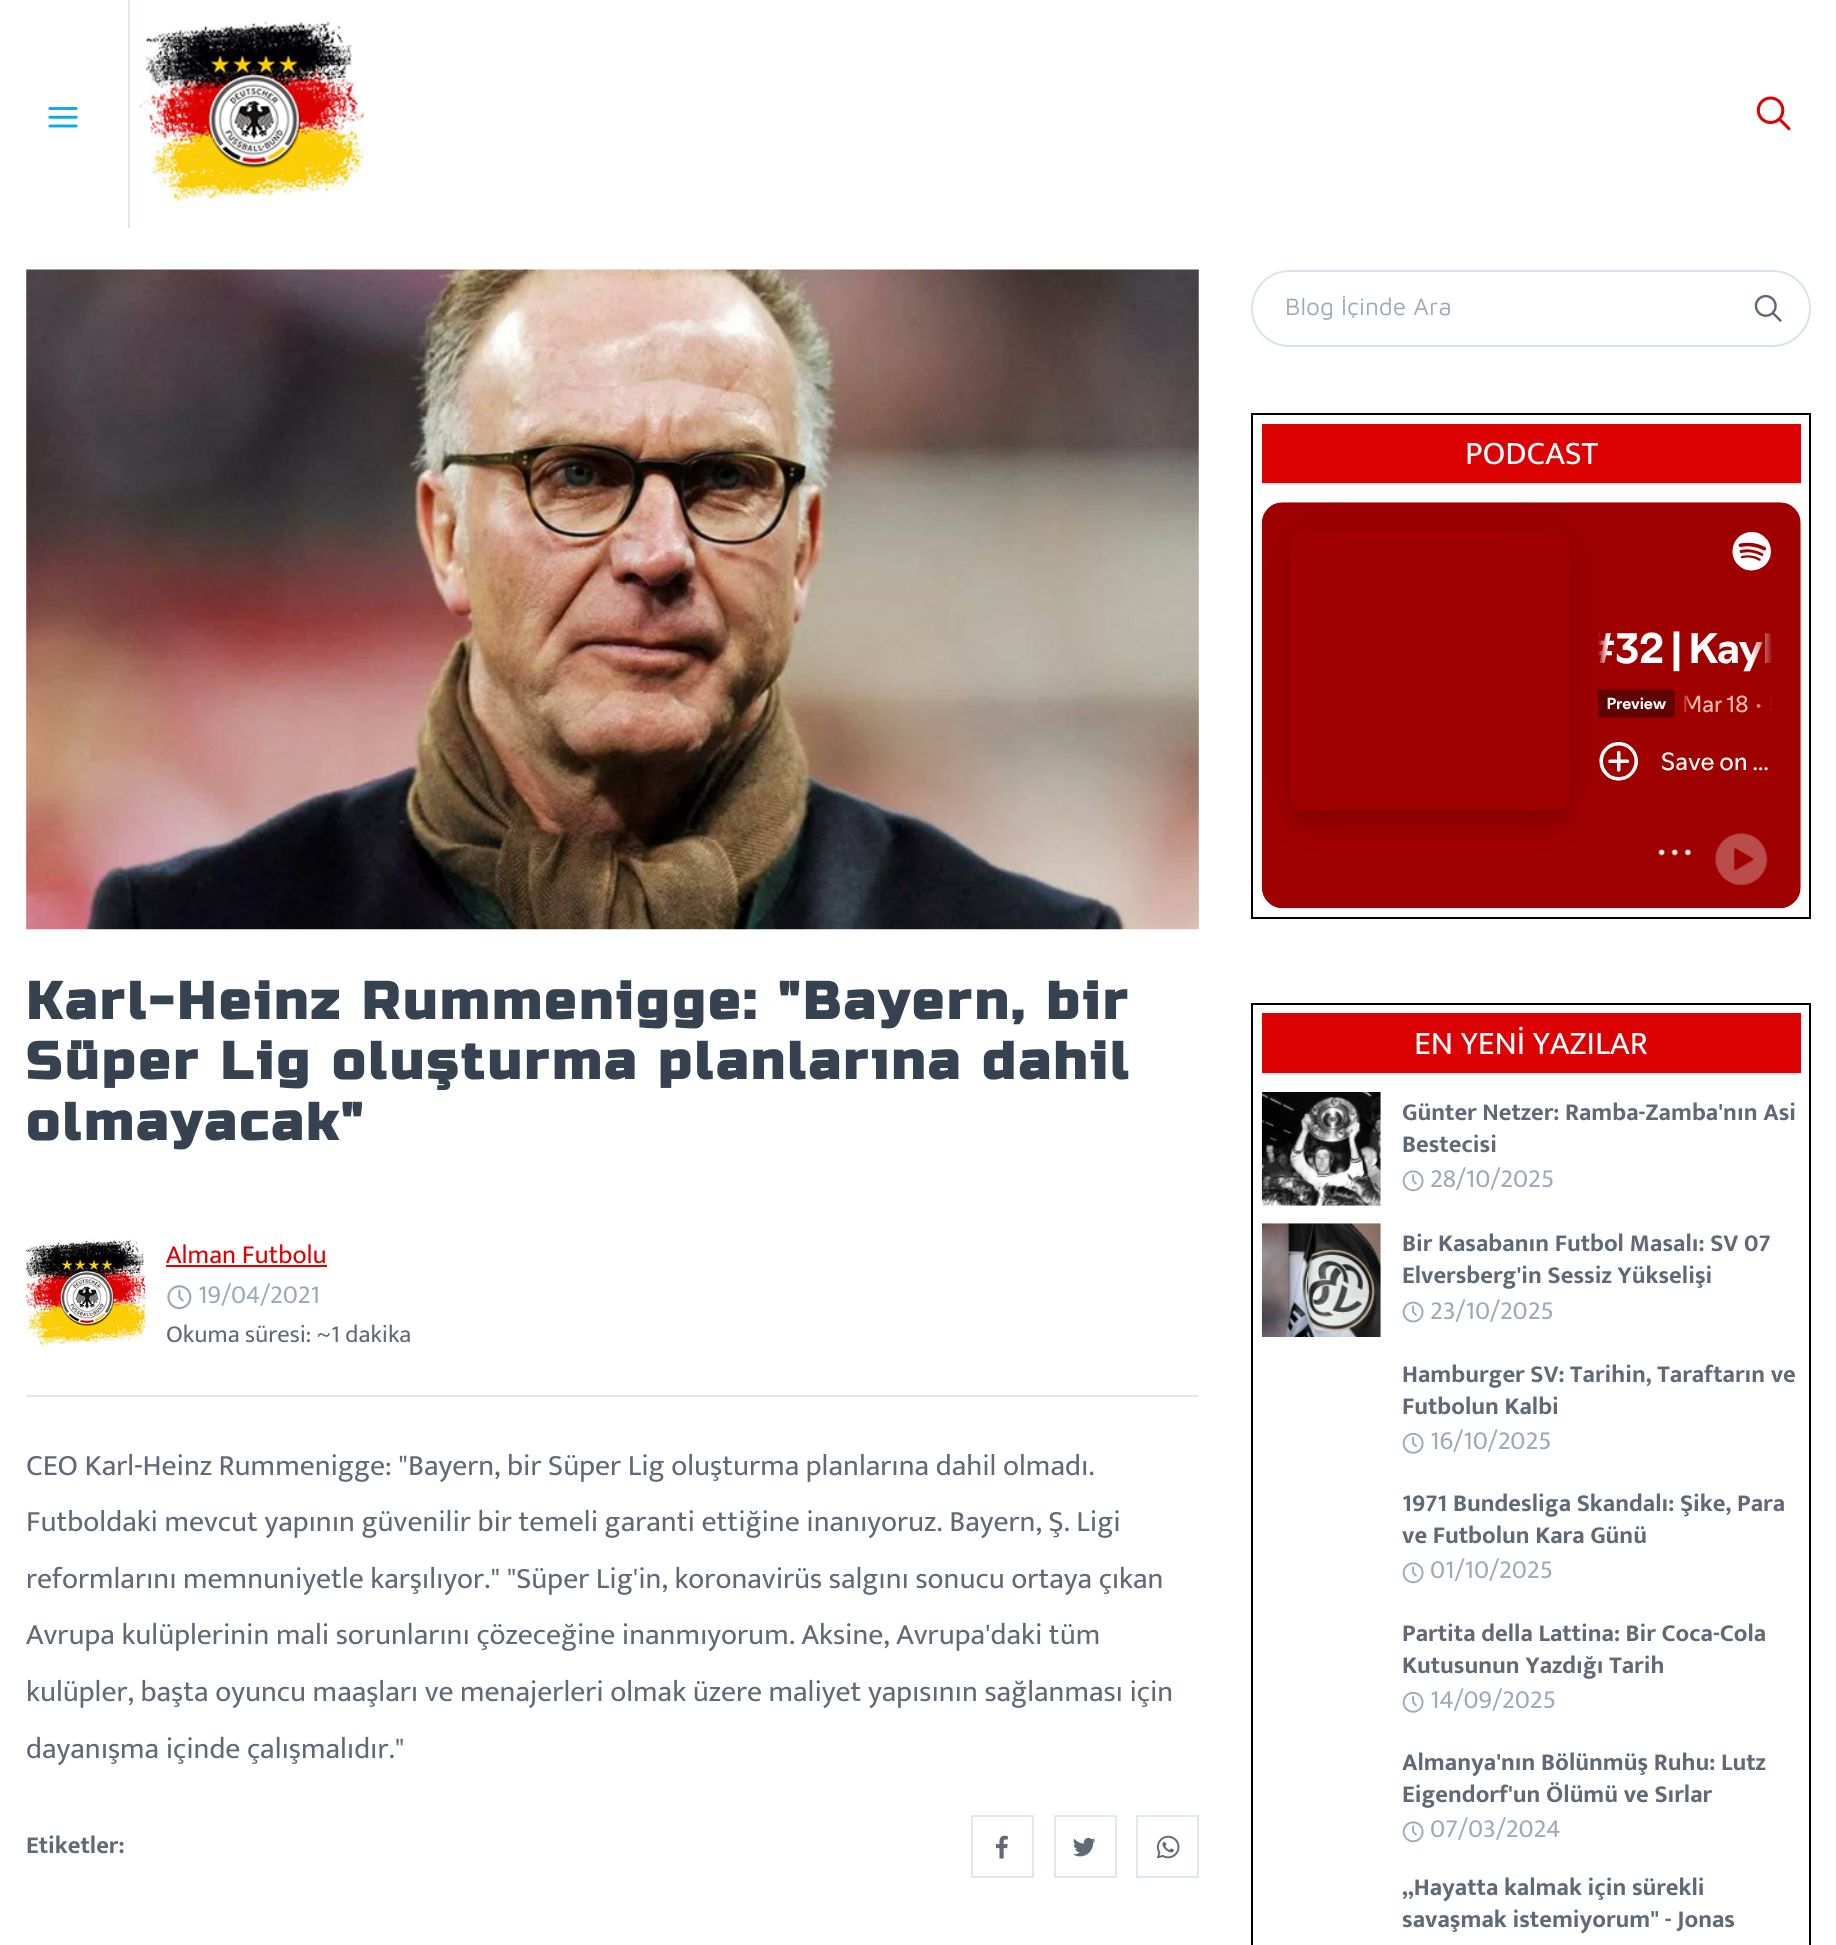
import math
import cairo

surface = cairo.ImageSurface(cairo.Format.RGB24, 1836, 1945)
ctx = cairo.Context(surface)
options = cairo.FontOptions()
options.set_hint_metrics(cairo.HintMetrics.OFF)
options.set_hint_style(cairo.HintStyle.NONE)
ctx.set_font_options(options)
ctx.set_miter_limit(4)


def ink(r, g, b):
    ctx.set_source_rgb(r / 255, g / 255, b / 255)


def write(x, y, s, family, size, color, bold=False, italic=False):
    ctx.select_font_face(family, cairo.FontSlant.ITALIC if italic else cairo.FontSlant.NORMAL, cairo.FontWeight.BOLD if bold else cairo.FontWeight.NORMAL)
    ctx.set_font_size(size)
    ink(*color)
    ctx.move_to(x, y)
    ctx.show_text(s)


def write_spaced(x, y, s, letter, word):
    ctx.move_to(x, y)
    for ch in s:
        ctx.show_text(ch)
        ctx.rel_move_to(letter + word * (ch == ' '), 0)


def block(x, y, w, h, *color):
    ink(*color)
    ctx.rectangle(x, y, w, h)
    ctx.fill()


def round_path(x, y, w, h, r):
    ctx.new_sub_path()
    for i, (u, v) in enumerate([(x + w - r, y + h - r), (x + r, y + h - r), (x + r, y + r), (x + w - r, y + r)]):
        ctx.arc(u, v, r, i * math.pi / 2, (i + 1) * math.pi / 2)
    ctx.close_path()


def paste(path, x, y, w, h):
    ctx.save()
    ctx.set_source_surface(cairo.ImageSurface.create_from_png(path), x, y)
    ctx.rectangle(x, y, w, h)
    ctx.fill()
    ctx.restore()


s1 = dict(family="Mukta", size=26.25, color=(220, 2, 3))
s2 = dict(family="Mukta", size=26.25, color=(157, 169, 185))
s3 = dict(family="Mukta", size=24.5, color=(96, 105, 117))
s4 = dict(family="Mukta", size=29.75, color=(96, 105, 117))
s5 = dict(family="Mukta", size=24.5, color=(96, 105, 117), bold=True)
s6 = dict(family="Maven Pro", size=24.5, color=(157, 169, 185))
s7 = dict(family="Mukta", size=33.25, color=(255, 255, 255))

ink(255, 255, 255)
ctx.paint()
block(128, 0, 2, 228, 225, 231, 236)
paste("pic1.png", 48, 107, 30, 21)
paste("pic2.png", 138, 21, 227, 181)
paste("pic3.png", 1756, 96, 35, 35)
paste("pic4.png", 26, 269, 1173, 661)
ctx.select_font_face("Russo One", cairo.FontSlant.NORMAL, cairo.FontWeight.BOLD)
ctx.set_font_size(52.5)
ink(55, 66, 80)
write_spaced(26, 1019, "Karl-Heinz Rummenigge: \"Bayern, bir", 3.5, 0)
write_spaced(26, 1079, "Süper Lig oluşturma planlarına dahil", 3.5, 0)
write_spaced(26, 1140, "olmayacak\"", 3.5, 0)
paste("pic5.png", 26, 1239, 120, 107)
write(166, 1263, "Alman Futbolu", **s1)
block(166, 1265, 161, 2, 220, 2, 3)
paste("pic6.png", 167, 1285, 25, 25)
write(198, 1303, "19/04/2021", **s2)
write(166, 1342, "Okuma süresi: ~1 dakika", **s3)
block(26, 1395, 1173, 2, 225, 231, 236)
write(26, 1475, "CEO Karl-Heinz Rummenigge: \"Bayern, bir Süper Lig oluşturma planlarına dahil olmadı.", **s4)
write(26, 1531, "Futboldaki mevcut yapının güvenilir bir temeli garanti ettiğine inanıyoruz. Bayern, Ş. Ligi", **s4)
write(26, 1588, "reformlarını memnuniyetle karşılıyor.\" \"Süper Lig'in, koronavirüs salgını sonucu ortaya çıkan", **s4)
write(26, 1644, "Avrupa kulüplerinin mali sorunlarını çözeceğine inanmıyorum. Aksine, Avrupa'daki tüm", **s4)
write(26, 1701, "kulüpler, başta oyuncu maaşları ve menajerleri olmak üzere maliyet yapısının sağlanması için", **s4)
write(26, 1758, "dayanışma içinde çalışmalıdır.\"", **s4)
write(26, 1853, "Etiketler:", **s5)
ctx.rectangle(972, 1816, 61, 61)
ink(225, 231, 236)
ctx.stroke()
paste("pic7.png", 995, 1835, 13, 24)
ctx.rectangle(1055, 1816, 61, 61)
ctx.stroke()
paste("pic8.png", 1073, 1837, 23, 20)
ctx.rectangle(1137, 1816, 61, 61)
ctx.stroke()
paste("pic9.png", 1156, 1835, 24, 24)
round_path(1252, 271, 558, 75, 37.5)
ink(219, 226, 232)
ctx.stroke()
write(1285, 315, "Blog İçinde Ara", **s6)
paste("pic10.png", 1754, 294, 28, 28)
ctx.rectangle(1252, 414, 558, 504)
ink(0, 0, 0)
ctx.stroke()
block(1262, 424, 539, 59, 220, 2, 3)
block(1262, 483, 539, 2, 225, 231, 236)
write(1465, 464, "PODCAST", **s7)
paste("pic11.png", 1261, 502, 540, 407)
ctx.rectangle(1252, 1004, 558, 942)
ink(0, 0, 0)
ctx.stroke()
block(1262, 1013, 539, 60, 220, 2, 3)
block(1262, 1073, 539, 2, 225, 231, 236)
write(1414, 1054, "EN YENİ YAZILAR", **s7)
paste("pic12.png", 1261, 1092, 120, 114)
write(1402, 1120, "Günter Netzer: Ramba-Zamba'nın Asi", **s5)
write(1402, 1152, "Bestecisi", **s5)
paste("pic13.png", 1402, 1170, 22, 22)
write(1430, 1187, "28/10/2025", **s2)
paste("pic14.png", 1261, 1223, 120, 114)
write(1402, 1251, "Bir Kasabanın Futbol Masalı: SV 07", **s5)
write(1402, 1283, "Elversberg'in Sessiz Yükselişi", **s5)
paste("pic15.png", 1402, 1301, 22, 22)
write(1430, 1319, "23/10/2025", **s2)
write(1402, 1382, "Hamburger SV: Tarihin, Taraftarın ve", **s5)
write(1402, 1414, "Futbolun Kalbi", **s5)
paste("pic16.png", 1402, 1432, 22, 22)
write(1430, 1449, "16/10/2025", **s2)
write(1402, 1511, "1971 Bundesliga Skandalı: Şike, Para", **s5)
write(1402, 1543, "ve Futbolun Kara Günü", **s5)
paste("pic13.png", 1402, 1562, 22, 22)
write(1430, 1578, "01/10/2025", **s2)
write(1402, 1641, "Partita della Lattina: Bir Coca-Cola", **s5)
write(1402, 1673, "Kutusunun Yazdığı Tarih", **s5)
paste("pic16.png", 1402, 1691, 22, 22)
write(1430, 1708, "14/09/2025", **s2)
write(1402, 1770, "Almanya'nın Bölünmüş Ruhu: Lutz", **s5)
write(1402, 1802, "Eigendorf'un Ölümü ve Sırlar", **s5)
paste("pic13.png", 1402, 1821, 22, 22)
write(1430, 1837, "07/03/2024", **s2)
write(1402, 1895, "„Hayatta kalmak için sürekli", **s5)
write(1402, 1927, "savaşmak istemiyorum\" - Jonas", **s5)
surface.write_to_png("screenshot.png")
